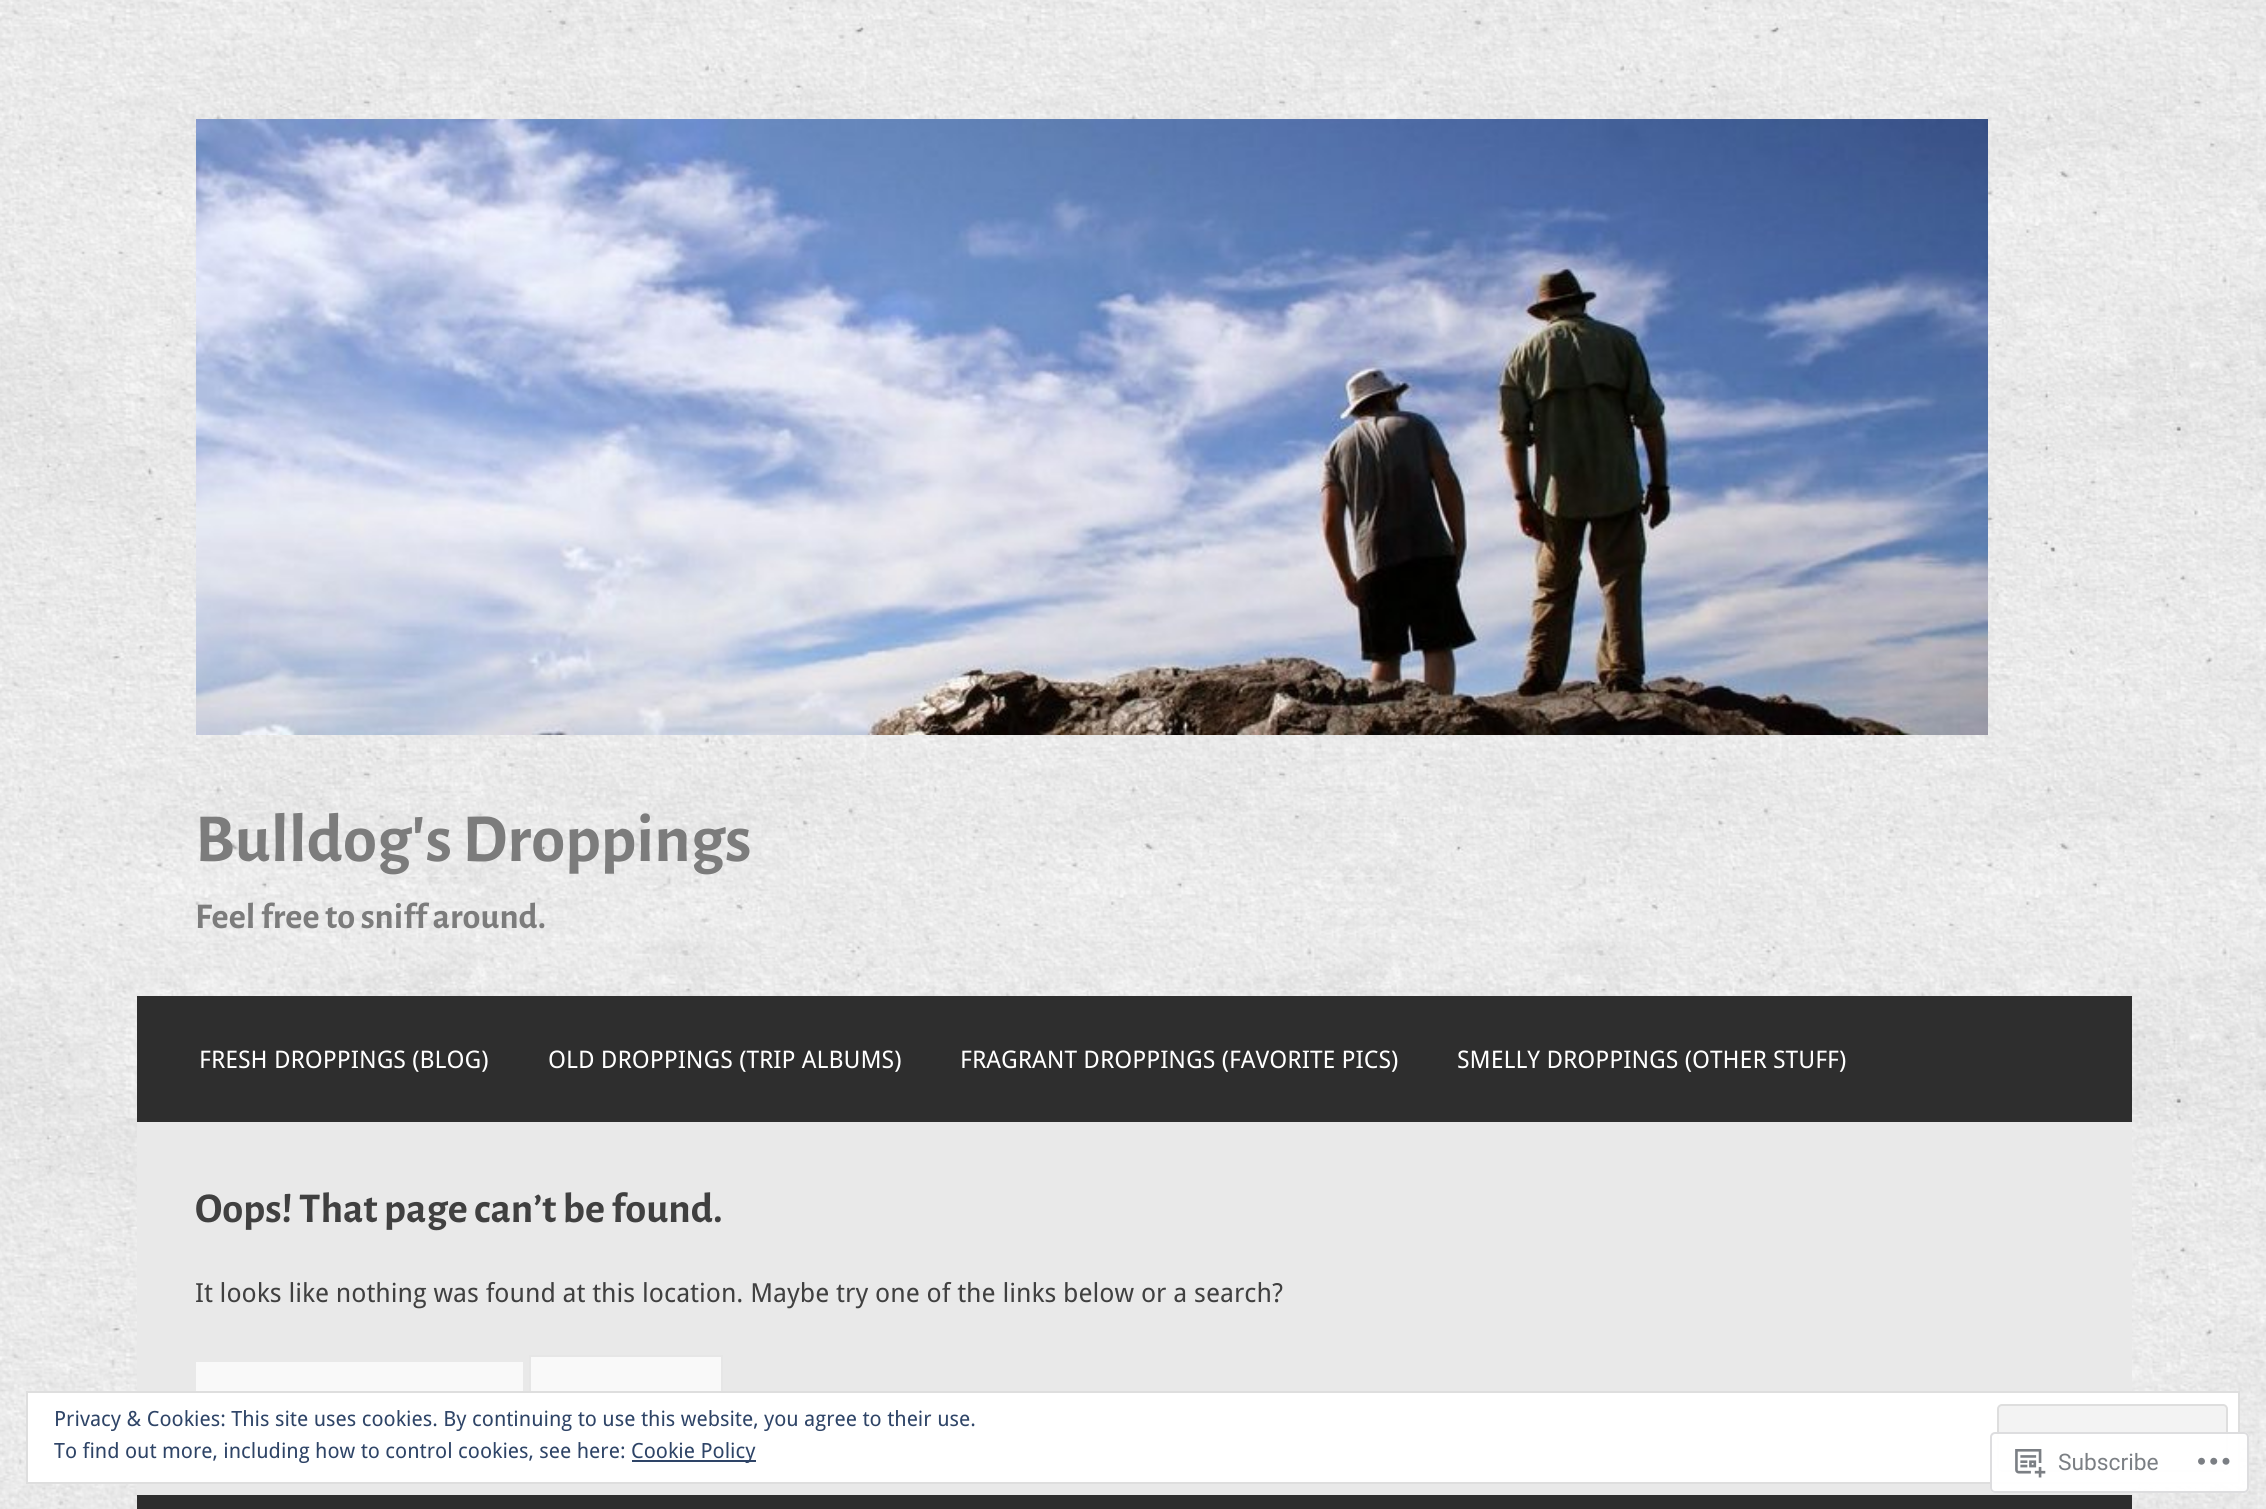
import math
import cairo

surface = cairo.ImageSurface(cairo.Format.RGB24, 2266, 1509)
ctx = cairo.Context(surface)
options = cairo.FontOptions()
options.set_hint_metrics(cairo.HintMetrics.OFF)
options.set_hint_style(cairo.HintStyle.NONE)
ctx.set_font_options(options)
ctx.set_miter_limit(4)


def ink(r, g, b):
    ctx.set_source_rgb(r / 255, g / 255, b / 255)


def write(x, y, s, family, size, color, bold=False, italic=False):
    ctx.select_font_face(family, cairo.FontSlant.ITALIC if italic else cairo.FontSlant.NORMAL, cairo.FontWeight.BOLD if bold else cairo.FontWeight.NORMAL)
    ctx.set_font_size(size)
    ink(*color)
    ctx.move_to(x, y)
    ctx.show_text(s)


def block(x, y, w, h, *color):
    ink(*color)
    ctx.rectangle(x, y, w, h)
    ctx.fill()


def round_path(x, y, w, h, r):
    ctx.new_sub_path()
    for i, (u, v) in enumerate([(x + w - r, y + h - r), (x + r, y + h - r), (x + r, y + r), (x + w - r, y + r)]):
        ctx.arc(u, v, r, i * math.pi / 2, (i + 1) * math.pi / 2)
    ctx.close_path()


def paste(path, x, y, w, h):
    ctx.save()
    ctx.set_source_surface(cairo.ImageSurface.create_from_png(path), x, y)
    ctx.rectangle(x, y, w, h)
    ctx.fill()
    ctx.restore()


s1 = dict(family="Alegreya Sans", size=68.75, color=(124, 124, 124), bold=True)
s2 = dict(family="Alegreya Sans", size=36.25, color=(124, 124, 124), bold=True)
s3 = dict(family="Droid Sans", size=24.25, color=(255, 255, 255))
s4 = dict(family="Alegreya Sans", size=42.4, color=(64, 64, 64), bold=True)
s5 = dict(family="Droid Sans", size=26.25, color=(64, 64, 64))
s6 = dict(family="Droid Sans", size=21, color=(46, 68, 103))
s7 = dict(family="Roboto", size=22.75, color=(123, 127, 132))

ink(255, 255, 255)
ctx.paint()
paste("pic1.png", 0, 0, 2266, 1509)
paste("pic2.png", 196, 119, 1792, 616)
write(195, 861, "Bulldog's Droppings", **s1)
write(195, 928, "Feel free to sniff around.", **s2)
block(137, 996, 1995, 126, 46, 46, 46)
write(199, 1068, "FRESH DROPPINGS (BLOG)", **s3)
write(548, 1068, "OLD DROPPINGS (TRIP ALBUMS)", **s3)
write(960, 1068, "FRAGRANT DROPPINGS (FAVORITE PICS)", **s3)
write(1457, 1068, "SMELLY DROPPINGS (OTHER STUFF)", **s3)
block(137, 1122, 1995, 373, 233, 233, 233)
write(195, 1222, "Oops! That page can’t be found.", **s4)
write(195, 1302, "It looks like nothing was found at this location. Maybe try one of the links below or a search?", **s5)
block(196, 1362, 327, 29, 249, 249, 249)
block(531, 1357, 190, 34, 249, 249, 249)
ctx.rectangle(530, 1356, 192, 78)
ink(230, 230, 230)
ctx.stroke()
block(137, 1495, 1995, 14, 46, 46, 46)
ink(255, 255, 255)
ctx.rectangle(27, 1392, 2212, 91)
ctx.fill_preserve()
ink(222, 222, 222)
ctx.stroke()
write(54, 1426, "Privacy & Cookies: This site uses cookies. By continuing to use this website, you agree to their use.", **s6)
ink(243, 243, 243)
round_path(1998, 1405, 229, 66, 4)
ctx.fill_preserve()
ink(222, 222, 222)
ctx.stroke()
write(54, 1458, "To find out more, including how to control cookies, see here:", **s6)
block(632, 1460, 124, 2, 46, 68, 103)
write(631, 1458, "Cookie Policy", **s6)
ctx.set_source_rgba(1, 1, 1, 0.98)
round_path(1990, 1432, 259, 61, 5)
ctx.fill()
round_path(1991, 1433, 257, 59, 4)
ctx.set_source_rgba(0.863, 0.863, 0.871, 0.98)
ctx.stroke()
paste("pic3.png", 2015, 1449, 31, 29)
write(2058, 1470, "Subscribe", **s7)
paste("pic4.png", 2198, 1457, 32, 8)
surface.write_to_png("screenshot.png")
